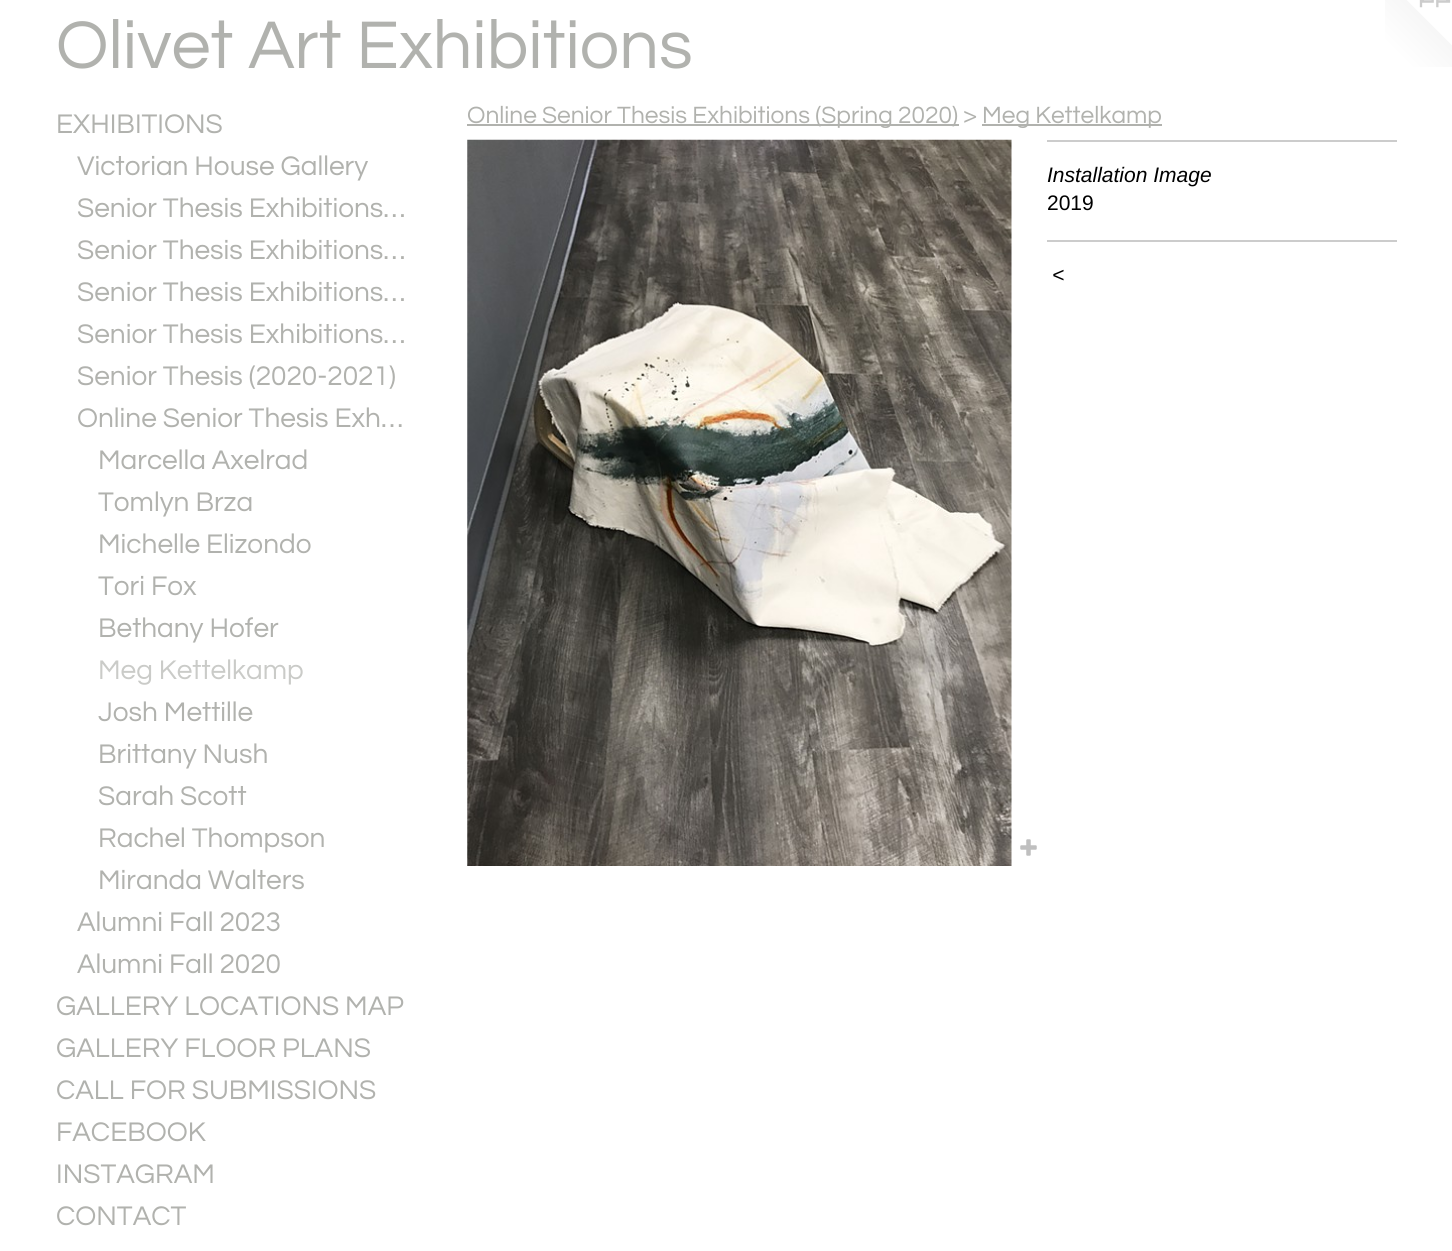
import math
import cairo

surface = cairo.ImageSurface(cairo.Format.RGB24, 1452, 1251)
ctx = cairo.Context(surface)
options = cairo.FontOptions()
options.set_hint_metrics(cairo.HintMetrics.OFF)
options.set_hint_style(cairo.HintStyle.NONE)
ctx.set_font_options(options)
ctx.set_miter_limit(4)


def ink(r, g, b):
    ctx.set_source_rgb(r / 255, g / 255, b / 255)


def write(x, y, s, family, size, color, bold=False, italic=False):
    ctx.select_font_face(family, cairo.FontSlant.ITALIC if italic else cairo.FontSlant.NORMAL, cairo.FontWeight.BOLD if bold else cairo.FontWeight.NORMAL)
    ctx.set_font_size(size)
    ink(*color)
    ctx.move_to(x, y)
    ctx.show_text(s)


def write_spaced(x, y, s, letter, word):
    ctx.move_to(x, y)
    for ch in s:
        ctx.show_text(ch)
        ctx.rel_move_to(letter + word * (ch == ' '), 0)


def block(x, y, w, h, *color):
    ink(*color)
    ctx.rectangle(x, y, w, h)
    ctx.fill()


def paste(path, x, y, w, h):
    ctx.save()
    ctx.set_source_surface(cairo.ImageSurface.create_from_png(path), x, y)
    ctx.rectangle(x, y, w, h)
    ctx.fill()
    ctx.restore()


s1 = dict(family="Questrial", size=70, color=(177, 178, 174))
s2 = dict(family="Questrial", size=28, color=(177, 178, 174))
s3 = dict(family="Questrial", size=28, color=(202, 203, 200))
s4 = dict(family="Questrial", size=24.5, color=(177, 178, 174))
s5 = dict(family="Liberation Sans", size=21, color=(0, 0, 0), italic=True)
s6 = dict(family="Liberation Sans", size=21, color=(0, 0, 0))

ink(255, 255, 255)
ctx.paint()
write(56, 68, "Olivet Art Exhibitions", **s1)
paste("pic1.png", 1385, 0, 67, 67)
write(56, 133, "EXHIBITIONS", **s2)
write(77, 175, "Victorian House Gallery", **s2)
write(77, 217, "Senior Thesis Exhibitions…", **s2)
write(77, 259, "Senior Thesis Exhibitions…", **s2)
write(77, 301, "Senior Thesis Exhibitions…", **s2)
write(77, 343, "Senior Thesis Exhibitions…", **s2)
write(77, 385, "Senior Thesis (2020-2021)", **s2)
write(77, 427, "Online Senior Thesis Exh…", **s2)
write(98, 469, "Marcella Axelrad", **s2)
write(98, 511, "Tomlyn Brza", **s2)
write(98, 553, "Michelle Elizondo", **s2)
write(98, 595, "Tori Fox", **s2)
write(98, 637, "Bethany Hofer", **s2)
write(98, 679, "Meg Kettelkamp", **s3)
write(98, 721, "Josh Mettille", **s2)
write(98, 763, "Brittany Nush", **s2)
write(98, 805, "Sarah Scott", **s2)
write(98, 847, "Rachel Thompson", **s2)
write(98, 889, "Miranda Walters", **s2)
write(77, 931, "Alumni Fall 2023", **s2)
write(77, 973, "Alumni Fall 2020", **s2)
write(56, 1015, "GALLERY LOCATIONS MAP", **s2)
write(56, 1057, "GALLERY FLOOR PLANS", **s2)
write(56, 1099, "CALL FOR SUBMISSIONS", **s2)
write(56, 1141, "FACEBOOK", **s2)
write(56, 1183, "INSTAGRAM", **s2)
write(56, 1225, "CONTACT", **s2)
block(467, 124, 492, 2, 177, 178, 174)
write(467, 123, "Online Senior Thesis Exhibitions (Spring 2020) >", **s4)
block(982, 124, 180, 2, 177, 178, 174)
write(982, 123, "Meg Kettelkamp", **s4)
paste("pic2.png", 467, 139, 545, 727)
paste("pic3.png", 1020, 839, 17, 17)
block(1047, 140, 350, 2, 204, 204, 204)
write(1047, 182, "Installation Image", **s5)
write(1047, 210, "2019", **s6)
block(1047, 240, 350, 2, 204, 204, 204)
ctx.select_font_face("Liberation Sans", cairo.FontSlant.ITALIC)
ink(0, 0, 0)
write_spaced(1052, 282, "<", 2, 0)
surface.write_to_png("screenshot.png")
